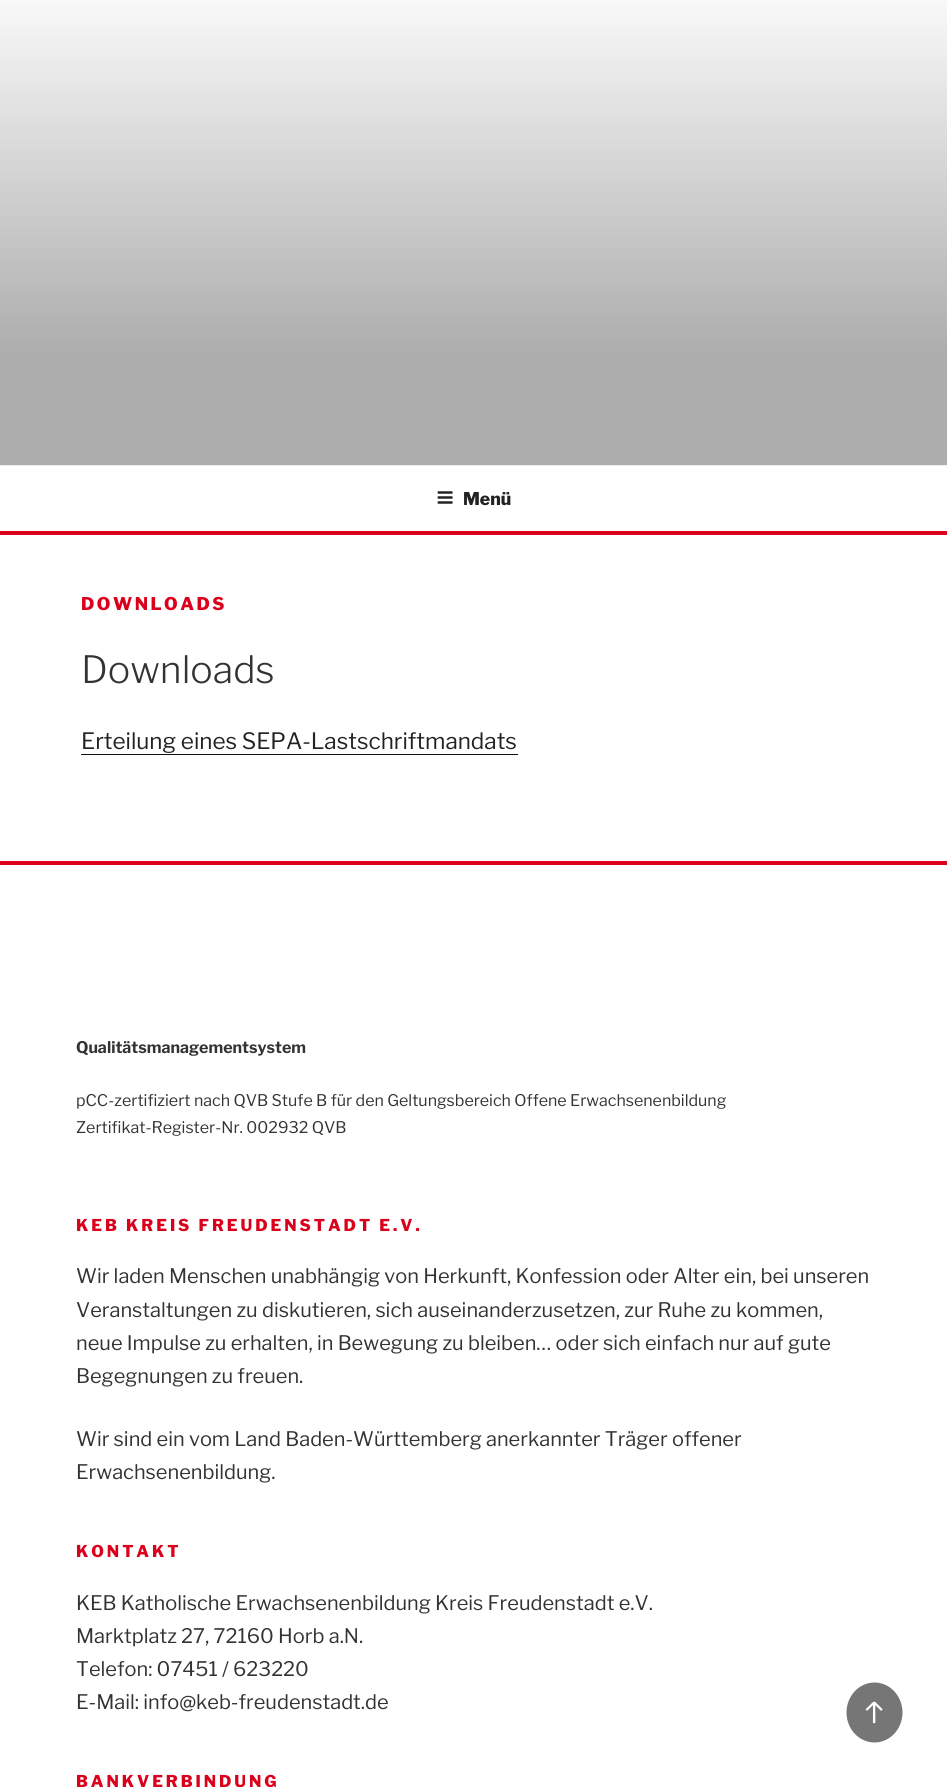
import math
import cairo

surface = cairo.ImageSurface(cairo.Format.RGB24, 947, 1787)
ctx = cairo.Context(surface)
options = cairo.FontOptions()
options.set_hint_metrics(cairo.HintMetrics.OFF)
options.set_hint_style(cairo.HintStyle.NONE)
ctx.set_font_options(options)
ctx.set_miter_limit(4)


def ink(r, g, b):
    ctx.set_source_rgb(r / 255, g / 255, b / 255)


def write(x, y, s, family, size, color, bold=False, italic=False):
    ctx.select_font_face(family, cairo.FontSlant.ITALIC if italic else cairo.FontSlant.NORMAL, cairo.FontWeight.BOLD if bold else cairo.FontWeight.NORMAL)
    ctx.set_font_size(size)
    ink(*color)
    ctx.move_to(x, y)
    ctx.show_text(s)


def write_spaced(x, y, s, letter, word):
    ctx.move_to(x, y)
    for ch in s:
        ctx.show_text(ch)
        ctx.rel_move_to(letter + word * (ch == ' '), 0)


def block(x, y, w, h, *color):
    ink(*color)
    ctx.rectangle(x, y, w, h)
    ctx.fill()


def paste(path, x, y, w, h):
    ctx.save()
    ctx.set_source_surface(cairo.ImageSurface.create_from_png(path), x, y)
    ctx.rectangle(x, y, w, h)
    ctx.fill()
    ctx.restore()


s1 = dict(family="Libre Franklin ExtraBold", size=17.5, color=(34, 34, 34))
s2 = dict(family="Libre Franklin Light", size=37.5, color=(51, 51, 51))
s3 = dict(family="Libre Franklin", size=22.5, color=(34, 34, 34))
s4 = dict(family="Libre Franklin", size=16, color=(51, 51, 51), bold=True)
s5 = dict(family="Libre Franklin", size=16, color=(51, 51, 51))
s6 = dict(family="Libre Franklin", size=20, color=(51, 51, 51))

ink(255, 255, 255)
ctx.paint()
gradient = cairo.LinearGradient(474, 0, 474, 465)
gradient.add_color_stop_rgba(0, 0.976, 0.976, 0.976, 1)
gradient.add_color_stop_rgba(0.75, 0.682, 0.682, 0.682, 1)
gradient.add_color_stop_rgba(1, 0.682, 0.682, 0.682, 1)
ctx.set_source(gradient)
ctx.rectangle(0, 0, 947, 465)
ctx.fill()
block(0, 465, 947, 1, 238, 238, 238)
block(0, 531, 947, 4, 219, 0, 27)
paste("pic1.png", 437, 491, 16, 13)
write(463, 505, "Menü", **s1)
ink(219, 0, 27)
write_spaced(81, 610, "DOWNLOADS", 2.5, 0)
write(81, 683, "Downloads", **s2)
write(81, 749, "Erteilung eines SEPA-Lastschriftmandats", **s3)
block(81, 754, 437, 1, 15, 15, 15)
ink(118, 118, 118)
ctx.new_path()
ctx.move_to(874.5, 1682.5)
ctx.curve_to(890, 1682.5, 902.5, 1696, 902.5, 1712.5)
ctx.curve_to(902.5, 1729, 890, 1742.5, 874.5, 1742.5)
ctx.curve_to(859, 1742.5, 846.5, 1729, 846.5, 1712.5)
ctx.curve_to(846.5, 1696, 859, 1682.5, 874.5, 1682.5)
ctx.close_path()
ctx.fill()
paste("pic2.png", 865, 1701, 18, 23)
block(0, 861, 947, 4, 219, 0, 27)
write(76, 1053, "Qualitätsmanagementsystem", **s4)
write(76, 1106, "pCC-zertifiziert nach QVB Stufe B für den Geltungsbereich Offene Erwachsenenbildung", **s5)
write(76, 1133, "Zertifikat-Register-Nr. 002932 QVB", **s5)
ctx.select_font_face("Libre Franklin ExtraBold")
ctx.set_font_size(16.25)
ink(219, 0, 27)
write_spaced(76, 1231, "KEB KREIS FREUDENSTADT E.V.", 2.95, 0)
write(76, 1283, "Wir laden Menschen unabhängig von Herkunft, Konfession oder Alter ein, bei unseren", **s6)
write(76, 1317, "Veranstaltungen zu diskutieren, sich auseinanderzusetzen, zur Ruhe zu kommen,", **s6)
write(76, 1350, "neue Impulse zu erhalten, in Bewegung zu bleiben… oder sich einfach nur auf gute", **s6)
write(76, 1383, "Begegnungen zu freuen.", **s6)
write(76, 1446, "Wir sind ein vom Land Baden-Württemberg anerkannter Träger offener", **s6)
write(76, 1479, "Erwachsenenbildung.", **s6)
ctx.select_font_face("Libre Franklin ExtraBold")
ctx.set_font_size(16.25)
ink(219, 0, 27)
write_spaced(76, 1557, "KONTAKT", 2.95, 0)
write(76, 1610, "KEB Katholische Erwachsenenbildung Kreis Freudenstadt e.V.", **s6)
write(76, 1643, "Marktplatz 27, 72160 Horb a.N.", **s6)
write(76, 1676, "Telefon: 07451 / 623220", **s6)
write(76, 1709, "E-Mail: info@keb-freudenstadt.de", **s6)
ctx.select_font_face("Libre Franklin ExtraBold")
ctx.set_font_size(16.25)
ink(219, 0, 27)
write_spaced(76, 1787, "BANKVERBINDUNG", 2.95, 0)
surface.write_to_png("screenshot.png")
